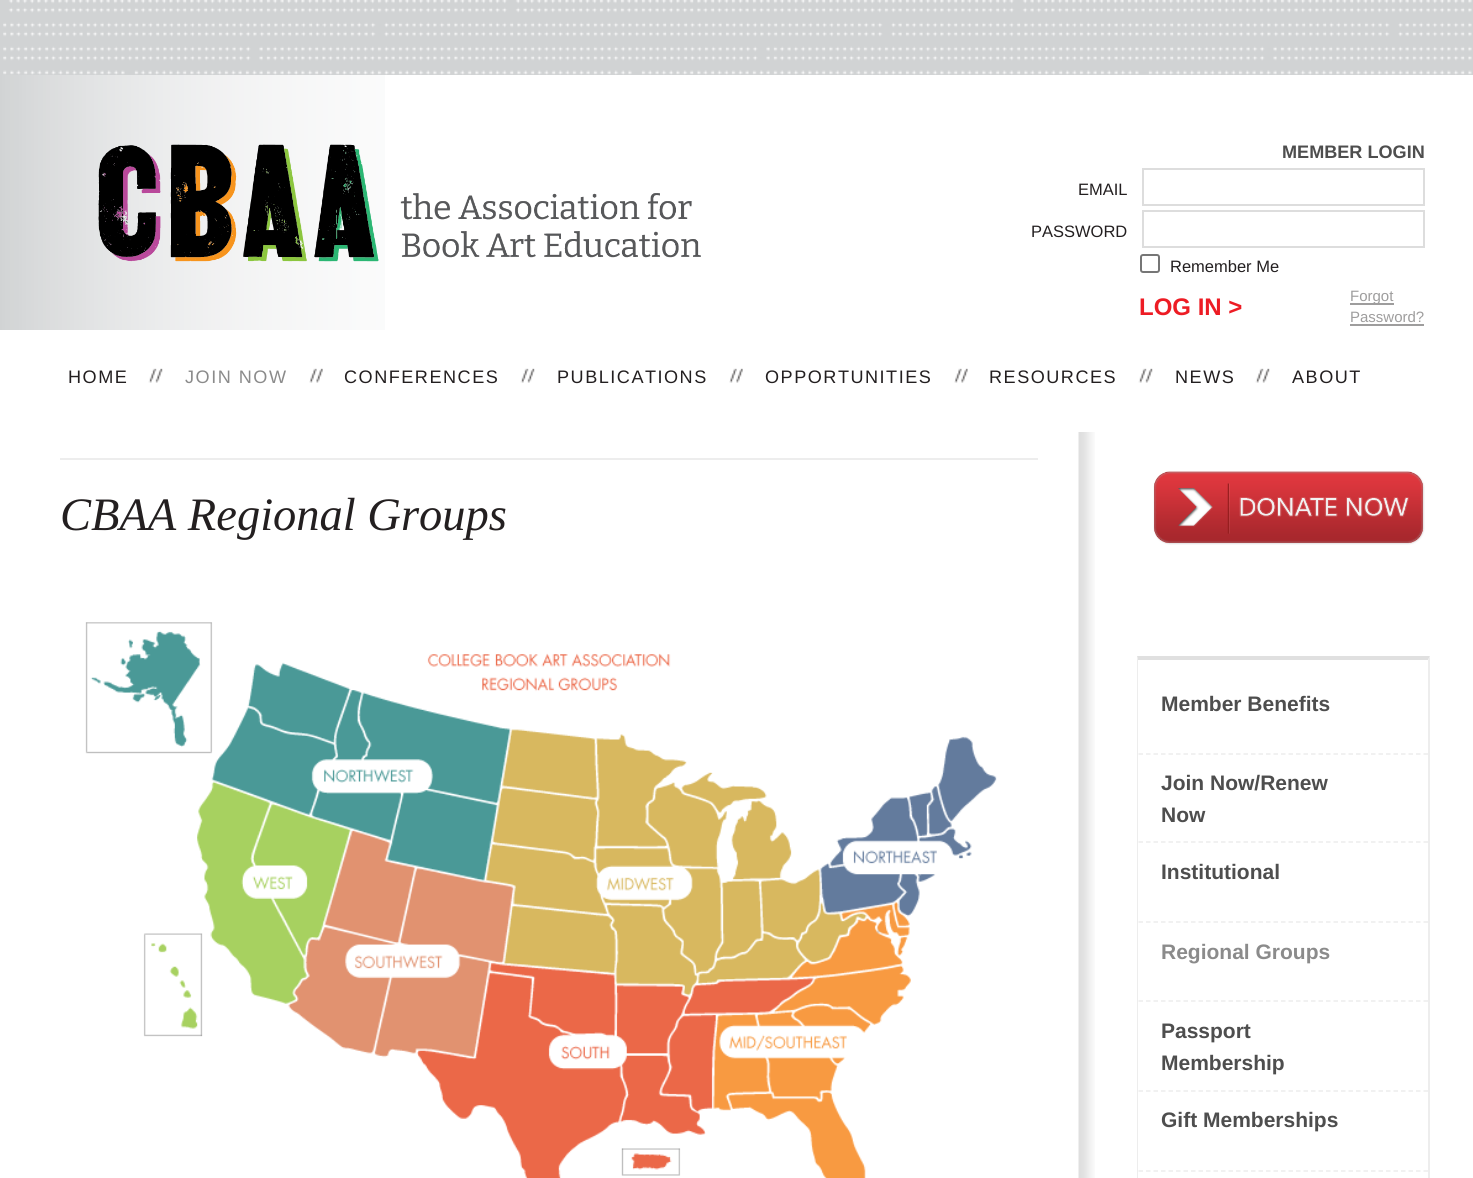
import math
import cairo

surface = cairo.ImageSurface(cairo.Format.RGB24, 1473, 1178)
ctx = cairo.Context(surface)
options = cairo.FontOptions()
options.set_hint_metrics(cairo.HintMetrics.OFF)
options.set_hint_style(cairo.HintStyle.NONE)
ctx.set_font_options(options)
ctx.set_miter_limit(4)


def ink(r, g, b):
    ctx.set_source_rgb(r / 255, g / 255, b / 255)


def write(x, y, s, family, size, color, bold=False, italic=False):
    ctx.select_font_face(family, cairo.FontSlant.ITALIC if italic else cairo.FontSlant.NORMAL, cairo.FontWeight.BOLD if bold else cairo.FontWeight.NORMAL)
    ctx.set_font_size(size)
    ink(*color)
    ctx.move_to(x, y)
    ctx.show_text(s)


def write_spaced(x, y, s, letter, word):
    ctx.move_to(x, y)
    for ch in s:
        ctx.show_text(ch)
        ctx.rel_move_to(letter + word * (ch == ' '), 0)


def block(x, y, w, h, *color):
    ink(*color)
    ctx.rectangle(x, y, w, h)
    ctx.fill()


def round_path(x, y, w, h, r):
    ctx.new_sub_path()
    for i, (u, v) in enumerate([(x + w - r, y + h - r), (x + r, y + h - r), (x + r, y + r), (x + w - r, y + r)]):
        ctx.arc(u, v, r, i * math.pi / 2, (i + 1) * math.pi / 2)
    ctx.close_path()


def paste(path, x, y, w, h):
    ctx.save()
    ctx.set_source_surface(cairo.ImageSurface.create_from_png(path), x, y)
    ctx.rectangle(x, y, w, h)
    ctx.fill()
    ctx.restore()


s1 = dict(family="Liberation Serif", size=46.5, color=(35, 31, 32), italic=True)
s2 = dict(family="Liberation Sans", size=18.1, color=(78, 78, 78), bold=True)
s3 = dict(family="Liberation Sans", size=16.5, color=(35, 31, 32))
s4 = dict(family="Liberation Sans", size=24, color=(237, 28, 36), bold=True)
s5 = dict(family="Liberation Sans", size=15, color=(158, 157, 157))
s6 = dict(family="Liberation Sans", size=21, color=(78, 78, 78), bold=True)
s7 = dict(family="Liberation Sans", size=21, color=(139, 139, 139), bold=True)

ink(209, 211, 212)
ctx.paint()
paste("pic1.png", 3, 0, 1469, 75)
block(0, 75, 1473, 1103, 255, 255, 255)
paste("pic2.png", 0, 75, 385, 255)
paste("pic3.png", 98, 144, 603, 118)
paste("pic4.png", 1078, 432, 17, 746)
block(60, 458, 978, 2, 237, 237, 237)
write(60, 530, "CBAA Regional Groups", **s1)
paste("pic5.png", 85, 622, 912, 556)
write(1282, 158, "MEMBER LOGIN", **s2)
write(1078, 195, "EMAIL", **s3)
ctx.rectangle(1143, 169, 281, 36)
ink(221, 221, 221)
ctx.stroke()
write(1031, 237, "PASSWORD", **s3)
ctx.rectangle(1143, 211, 281, 36)
ink(221, 221, 221)
ctx.stroke()
round_path(1141, 255, 18, 17, 2)
ink(118, 118, 118)
ctx.stroke()
write(1170, 272, "Remember Me", **s3)
write(1139, 315, "LOG IN >", **s4)
block(1350, 303, 44, 2, 158, 157, 157)
write(1350, 301, "Forgot", **s5)
write(1350, 322, "Password?", **s5)
block(1350, 324, 74, 2, 158, 157, 157)
paste("pic6.png", 1153, 471, 272, 74)
ink(224, 224, 224)
ctx.new_path()
ctx.move_to(1137, 656)
ctx.line_to(1430, 656)
ctx.line_to(1428, 660)
ctx.line_to(1138, 660)
ctx.close_path()
ctx.fill()
ink(237, 237, 237)
ctx.new_path()
ctx.move_to(1430, 656)
ctx.line_to(1430, 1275)
ctx.line_to(1428, 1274)
ctx.line_to(1428, 660)
ctx.close_path()
ctx.fill()
ctx.new_path()
ctx.move_to(1137, 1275)
ctx.line_to(1137, 656)
ctx.line_to(1138, 660)
ctx.line_to(1138, 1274)
ctx.close_path()
ctx.fill()
ctx.new_path()
ctx.move_to(1138.5, 754)
ctx.line_to(1428, 754)
ctx.set_line_width(1.5)
ctx.set_dash([4.5, 3])
ctx.stroke()
write(1161, 711, "Member Benefits", **s6)
ctx.new_path()
ctx.move_to(1138.5, 842)
ctx.line_to(1428, 842)
ink(237, 237, 237)
ctx.stroke()
write(1161, 790, "Join Now/Renew", **s6)
write(1161, 822, "Now", **s6)
ctx.new_path()
ctx.move_to(1138.5, 922)
ctx.line_to(1428, 922)
ink(237, 237, 237)
ctx.stroke()
write(1161, 879, "Institutional", **s6)
ctx.new_path()
ctx.move_to(1138.5, 1001)
ctx.line_to(1428, 1001)
ink(237, 237, 237)
ctx.stroke()
write(1161, 959, "Regional Groups", **s7)
ctx.new_path()
ctx.move_to(1138.5, 1091)
ctx.line_to(1428, 1091)
ink(237, 237, 237)
ctx.stroke()
write(1161, 1038, "Passport", **s6)
write(1161, 1070, "Membership", **s6)
ctx.new_path()
ctx.move_to(1138.5, 1171)
ctx.line_to(1428, 1171)
ink(237, 237, 237)
ctx.stroke()
write(1161, 1127, "Gift Memberships", **s6)
ctx.select_font_face("Liberation Sans")
ctx.set_font_size(18.1)
ink(35, 31, 32)
write_spaced(68, 383, "HOME", 1.5, 0)
paste("pic7.png", 148, 368, 15, 15)
ink(139, 139, 139)
write_spaced(185, 383, "JOIN NOW", 1.5, 0)
paste("pic8.png", 309, 368, 14, 15)
ink(35, 31, 32)
write_spaced(344, 383, "CONFERENCES", 1.5, 0)
paste("pic9.png", 520, 368, 15, 15)
write_spaced(557, 383, "PUBLICATIONS", 1.5, 0)
paste("pic8.png", 729, 368, 14, 15)
write_spaced(765, 383, "OPPORTUNITIES", 1.5, 0)
paste("pic10.png", 954, 368, 14, 15)
write_spaced(989, 383, "RESOURCES", 1.5, 0)
paste("pic9.png", 1138, 368, 15, 15)
write_spaced(1175, 383, "NEWS", 1.5, 0)
paste("pic7.png", 1255, 368, 15, 15)
write_spaced(1292, 383, "ABOUT", 1.5, 0)
surface.write_to_png("screenshot.png")
